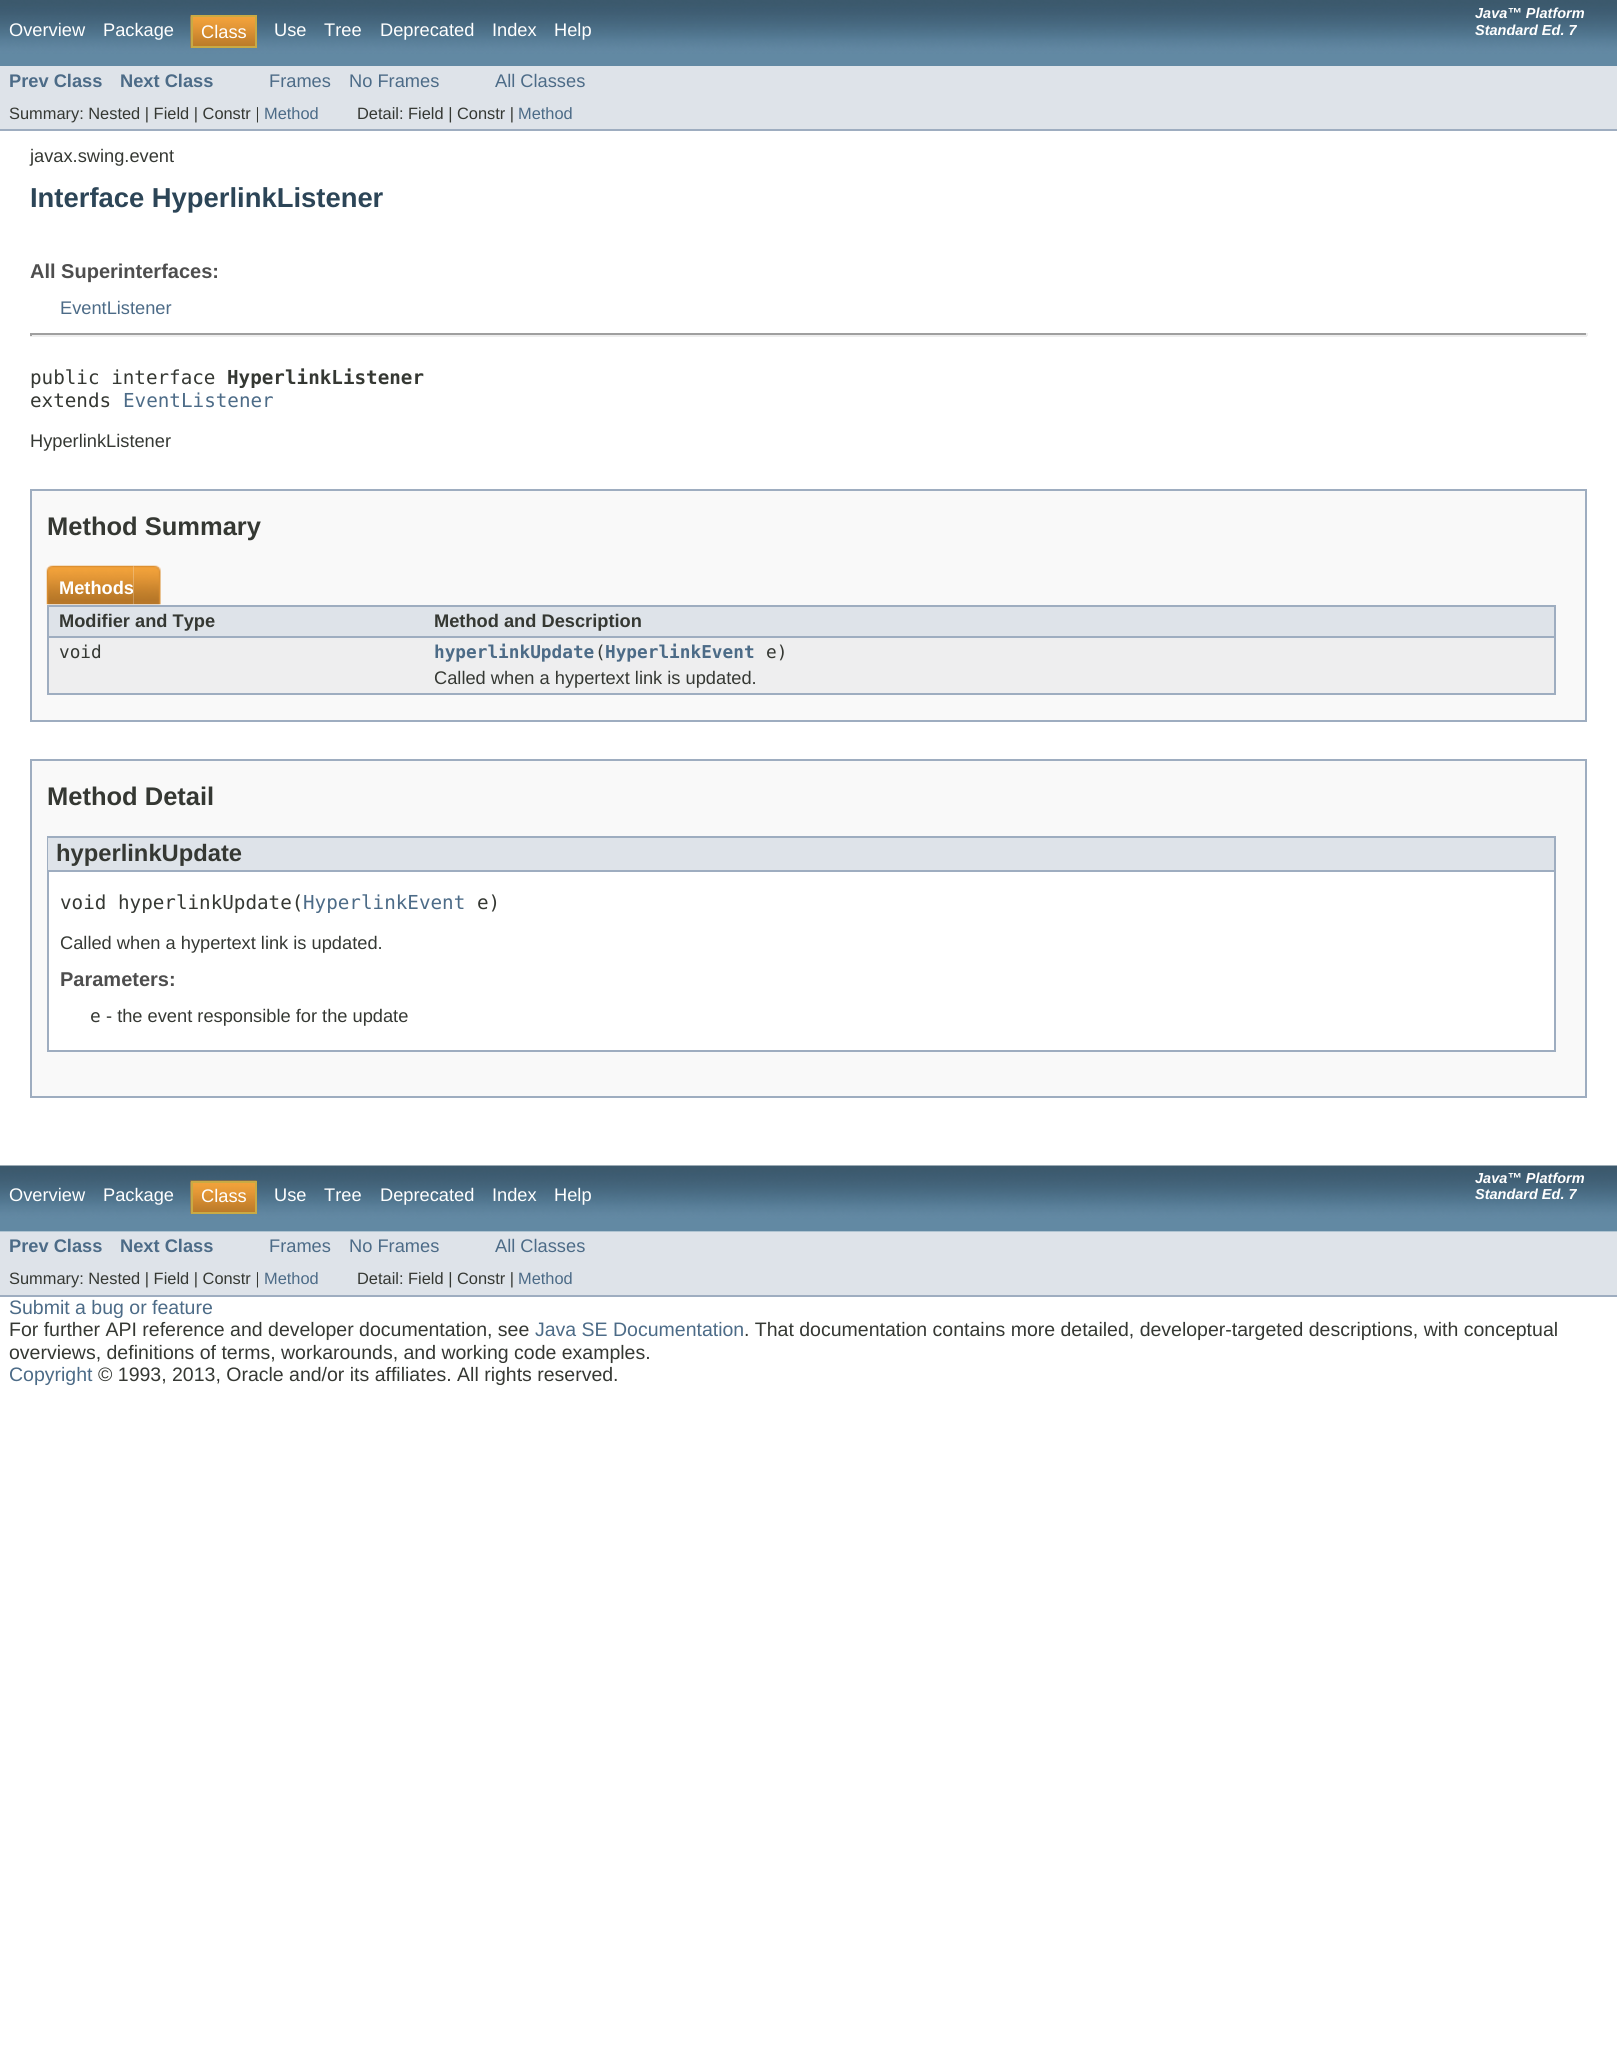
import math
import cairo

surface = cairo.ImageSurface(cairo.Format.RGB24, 1617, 2069)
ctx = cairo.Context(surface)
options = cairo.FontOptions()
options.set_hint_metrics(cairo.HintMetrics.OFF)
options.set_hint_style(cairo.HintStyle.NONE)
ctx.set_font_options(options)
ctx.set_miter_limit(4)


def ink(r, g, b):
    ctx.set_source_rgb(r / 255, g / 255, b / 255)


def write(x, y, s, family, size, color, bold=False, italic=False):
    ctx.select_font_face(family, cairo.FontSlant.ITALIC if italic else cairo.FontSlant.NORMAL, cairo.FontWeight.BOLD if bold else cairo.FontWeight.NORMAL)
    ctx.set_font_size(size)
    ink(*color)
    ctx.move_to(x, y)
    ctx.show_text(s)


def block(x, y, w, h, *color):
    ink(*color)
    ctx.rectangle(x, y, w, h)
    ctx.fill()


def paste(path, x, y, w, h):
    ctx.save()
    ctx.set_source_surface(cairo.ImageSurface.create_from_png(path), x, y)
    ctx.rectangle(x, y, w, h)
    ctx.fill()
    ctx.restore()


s1 = dict(family="Liberation Sans", size=18.25, color=(255, 255, 255))
s2 = dict(family="Liberation Sans", size=14.5, color=(255, 255, 255), bold=True, italic=True)
s3 = dict(family="Liberation Sans", size=18.25, color=(76, 107, 135), bold=True)
s4 = dict(family="Liberation Sans", size=18.25, color=(76, 107, 135))
s5 = dict(family="Liberation Sans", size=16.4, color=(53, 56, 51))
s6 = dict(family="Liberation Sans", size=16.4, color=(76, 107, 135))
s7 = dict(family="Liberation Sans", size=18.25, color=(53, 56, 51))
s8 = dict(family="Liberation Sans", size=27.4, color=(44, 69, 87), bold=True)
s9 = dict(family="Liberation Sans", size=20, color=(78, 78, 78), bold=True)
s10 = dict(family="DejaVu Sans Mono", size=19.25, color=(53, 56, 51))
s11 = dict(family="DejaVu Sans Mono", size=19.25, color=(53, 56, 51), bold=True)
s12 = dict(family="DejaVu Sans Mono", size=19.25, color=(76, 107, 135))
s13 = dict(family="Liberation Sans", size=25.5, color=(53, 56, 51), bold=True)
s14 = dict(family="Liberation Sans", size=18.25, color=(255, 255, 255), bold=True)
s15 = dict(family="Liberation Sans", size=18.25, color=(53, 56, 51), bold=True)
s16 = dict(family="DejaVu Sans Mono", size=17.75, color=(53, 56, 51))
s17 = dict(family="DejaVu Sans Mono", size=17.75, color=(76, 107, 135), bold=True)
s18 = dict(family="Liberation Sans", size=23.75, color=(53, 56, 51), bold=True)
s19 = dict(family="Liberation Sans", size=19.5, color=(76, 107, 135))
s20 = dict(family="Liberation Sans", size=19.5, color=(53, 56, 51))

ink(255, 255, 255)
ctx.paint()
paste("pic1.png", 0, 0, 1617, 66)
write(9, 36, "Overview", **s1)
write(103, 36, "Package", **s1)
paste("pic2.png", 190, 15, 65, 33)
ctx.rectangle(192, 16, 64, 31)
ink(201, 170, 68)
ctx.stroke()
write(201, 38, "Class", **s1)
write(274, 36, "Use", **s1)
write(324, 36, "Tree", **s1)
write(380, 36, "Deprecated", **s1)
write(492, 36, "Index", **s1)
write(554, 36, "Help", **s1)
write(1475, 18, "Java™ Platform", **s2)
write(1475, 35, "Standard Ed. 7", **s2)
block(0, 66, 1617, 63, 222, 227, 233)
block(0, 129, 1617, 2, 158, 173, 192)
write(9, 87, "Prev Class", **s3)
write(120, 87, "Next Class", **s3)
write(269, 87, "Frames", **s4)
write(349, 87, "No Frames", **s4)
write(495, 87, "All Classes", **s4)
write(9, 119, "Summary: Nested | Field | Constr |", **s5)
write(264, 119, "Method", **s6)
write(357, 119, "Detail: Field | Constr |", **s5)
write(518, 119, "Method", **s6)
write(30, 162, "javax.swing.event", **s7)
write(30, 207, "Interface HyperlinkListener", **s8)
write(30, 278, "All Superinterfaces:", **s9)
write(60, 314, "EventListener", **s4)
block(30, 333, 1557, 2, 159, 159, 159)
block(1586, 333, 2, 3, 238, 238, 238)
block(30, 335, 1557, 2, 238, 238, 238)
block(30, 333, 2, 3, 159, 159, 159)
write(30, 384, "public interface", **s10)
write(227, 384, "HyperlinkListener", **s11)
write(30, 407, "extends", **s10)
write(123, 407, "EventListener", **s12)
write(30, 447, "HyperlinkListener", **s7)
ink(249, 249, 249)
ctx.rectangle(31, 490, 1555, 231)
ctx.fill_preserve()
ink(158, 173, 192)
ctx.stroke()
write(47, 535, "Method Summary", **s13)
block(47, 693, 1509, 2, 158, 173, 192)
paste("pic3.png", 46, 565, 88, 40)
write(59, 594, "Methods", **s14)
paste("pic4.png", 133, 565, 28, 40)
block(49, 607, 1505, 29, 222, 227, 233)
block(47, 605, 1509, 2, 158, 173, 192)
block(47, 636, 378, 2, 158, 173, 192)
block(47, 605, 2, 88, 158, 173, 192)
write(59, 627, "Modifier and Type", **s15)
block(1554, 605, 2, 88, 158, 173, 192)
block(425, 636, 1131, 2, 158, 173, 192)
write(434, 627, "Method and Description", **s15)
block(49, 638, 1505, 55, 238, 238, 239)
write(59, 658, "void", **s16)
write(434, 658, "hyperlinkUpdate HyperlinkEvent", **s17)
write(595, 658, "(", **s16)
write(766, 658, "e)", **s16)
write(434, 684, "Called when a hypertext link is updated.", **s7)
ink(249, 249, 249)
ctx.rectangle(31, 760, 1555, 337)
ctx.fill_preserve()
ink(158, 173, 192)
ctx.stroke()
write(47, 805, "Method Detail", **s13)
block(49, 872, 1505, 178, 255, 255, 255)
block(1554, 836, 2, 216, 158, 173, 192)
block(47, 1050, 1509, 2, 158, 173, 192)
block(47, 836, 2, 216, 158, 173, 192)
block(48, 838, 1506, 32, 222, 227, 233)
block(48, 836, 1506, 2, 158, 173, 192)
block(48, 870, 1506, 2, 158, 173, 192)
write(56, 861, "hyperlinkUpdate", **s18)
write(60, 909, "void hyperlinkUpdate(", **s10)
write(303, 909, "HyperlinkEvent", **s12)
write(477, 909, "e)", **s10)
write(60, 949, "Called when a hypertext link is updated.", **s7)
write(60, 986, "Parameters:", **s9)
write(90, 1022, "e", **s16)
write(106, 1022, "- the event responsible for the update", **s7)
paste("pic5.png", 0, 1165, 1617, 67)
write(9, 1201, "Overview", **s1)
write(103, 1201, "Package", **s1)
paste("pic6.png", 190, 1180, 67, 34)
ctx.rectangle(192, 1182, 64, 31)
ink(201, 170, 68)
ctx.stroke()
write(201, 1202, "Class", **s1)
write(274, 1201, "Use", **s1)
write(324, 1201, "Tree", **s1)
write(380, 1201, "Deprecated", **s1)
write(492, 1201, "Index", **s1)
write(554, 1201, "Help", **s1)
write(1475, 1183, "Java™ Platform", **s2)
write(1475, 1199, "Standard Ed. 7", **s2)
block(0, 1232, 1617, 63, 222, 227, 233)
block(0, 1295, 1617, 2, 158, 173, 192)
write(9, 1252, "Prev Class", **s3)
write(120, 1252, "Next Class", **s3)
write(269, 1252, "Frames", **s4)
write(349, 1252, "No Frames", **s4)
write(495, 1252, "All Classes", **s4)
write(9, 1284, "Summary: Nested | Field | Constr |", **s5)
write(264, 1284, "Method", **s6)
write(357, 1284, "Detail: Field | Constr |", **s5)
write(518, 1284, "Method", **s6)
write(9, 1314, "Submit a bug or feature", **s19)
write(9, 1336, "For further API reference and developer documentation, see", **s20)
write(535, 1336, "Java SE Documentation", **s19)
write(744, 1336, ". That documentation contains more detailed, developer-targeted descriptions, with conceptual", **s20)
write(9, 1359, "overviews, definitions of terms, workarounds, and working code examples.", **s20)
write(9, 1381, "Copyright", **s19)
write(98, 1381, "© 1993, 2013, Oracle and/or its affiliates. All rights reserved.", **s20)
surface.write_to_png("screenshot.png")
